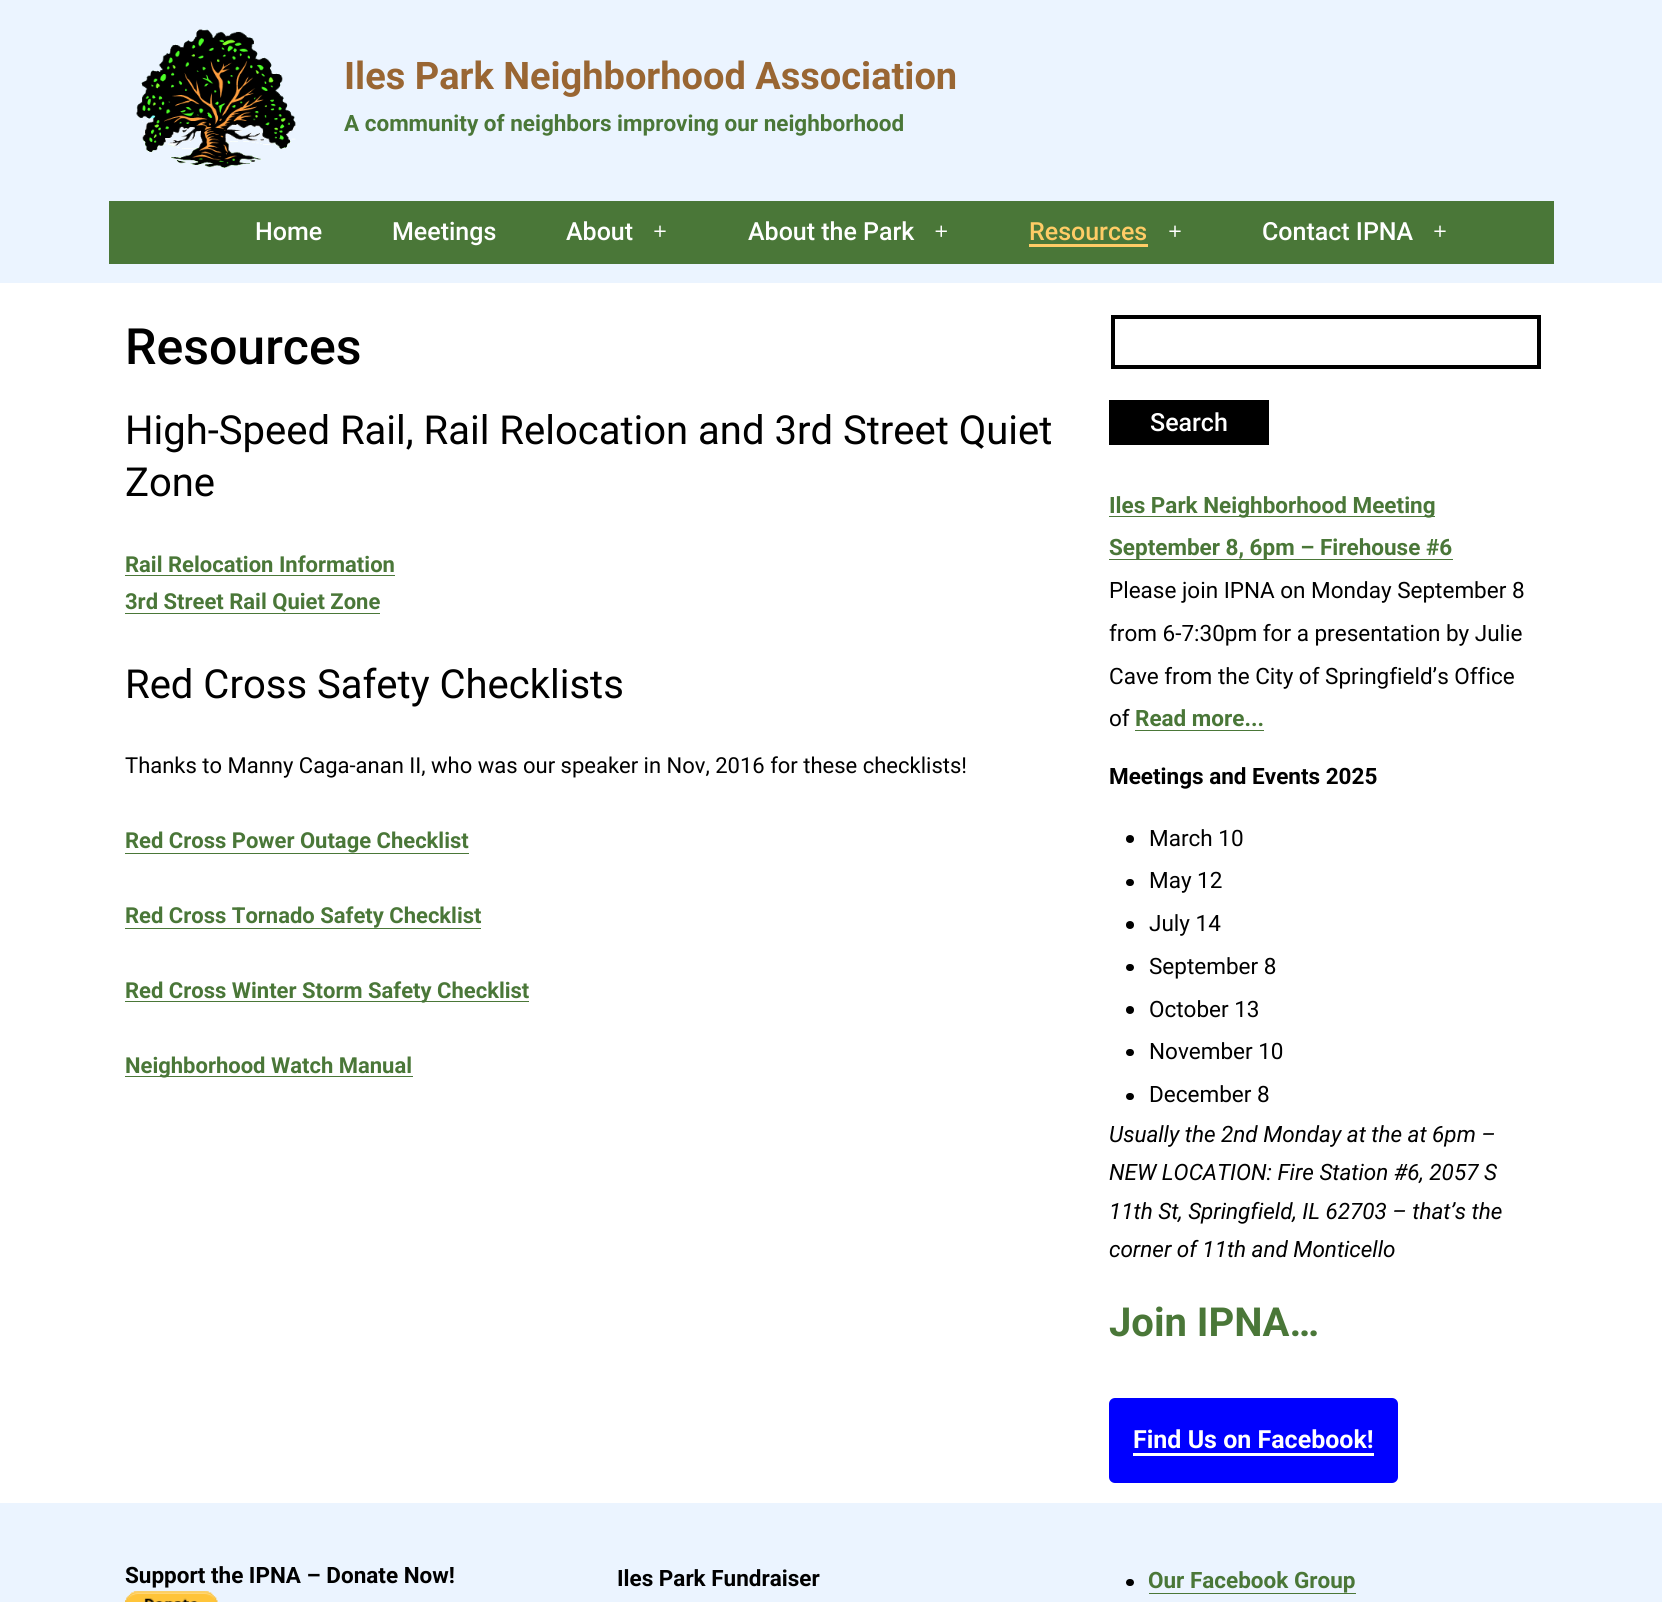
import math
import cairo

surface = cairo.ImageSurface(cairo.Format.RGB24, 1662, 1602)
ctx = cairo.Context(surface)
options = cairo.FontOptions()
options.set_hint_metrics(cairo.HintMetrics.OFF)
options.set_hint_style(cairo.HintStyle.NONE)
ctx.set_font_options(options)
ctx.set_miter_limit(4)


def ink(r, g, b):
    ctx.set_source_rgb(r / 255, g / 255, b / 255)


def write(x, y, s, family, size, color, bold=False, italic=False):
    ctx.select_font_face(family, cairo.FontSlant.ITALIC if italic else cairo.FontSlant.NORMAL, cairo.FontWeight.BOLD if bold else cairo.FontWeight.NORMAL)
    ctx.set_font_size(size)
    ink(*color)
    ctx.move_to(x, y)
    ctx.show_text(s)


def block(x, y, w, h, *color):
    ink(*color)
    ctx.rectangle(x, y, w, h)
    ctx.fill()


def round_path(x, y, w, h, r):
    ctx.new_sub_path()
    for i, (u, v) in enumerate([(x + w - r, y + h - r), (x + r, y + h - r), (x + r, y + r), (x + w - r, y + r)]):
        ctx.arc(u, v, r, i * math.pi / 2, (i + 1) * math.pi / 2)
    ctx.close_path()


def paste(path, x, y, w, h):
    ctx.save()
    ctx.set_source_surface(cairo.ImageSurface.create_from_png(path), x, y)
    ctx.rectangle(x, y, w, h)
    ctx.fill()
    ctx.restore()


s1 = dict(family="Roboto", size=38, color=(153, 102, 51), bold=True)
s2 = dict(family="Roboto", size=22.5, color=(74, 119, 56), bold=True)
s3 = dict(family="Roboto Medium", size=25, color=(255, 255, 255))
s4 = dict(family="Roboto Medium", size=25, color=(255, 204, 102))
s5 = dict(family="Roboto Medium", size=50, color=(0, 0, 0))
s6 = dict(family="Roboto", size=40, color=(0, 0, 0))
s7 = dict(family="Roboto", size=22, color=(74, 119, 56), bold=True)
s8 = dict(family="Roboto", size=22, color=(0, 0, 0))
s9 = dict(family="Roboto", size=22.5, color=(0, 0, 0))
s10 = dict(family="Roboto", size=22.5, color=(0, 0, 0), bold=True)
s11 = dict(family="Roboto", size=22.5, color=(0, 0, 0), italic=True)
s12 = dict(family="Roboto", size=40, color=(74, 119, 56), bold=True)
s13 = dict(family="Roboto", size=25, color=(255, 255, 255), bold=True)

ink(255, 255, 255)
ctx.paint()
block(0, 0, 1662, 283, 235, 244, 255)
paste("pic1.png", 136, 29, 161, 139)
write(344, 89, "Iles Park Neighborhood Association", **s1)
write(344, 131, "A community of neighbors improving our neighborhood", **s2)
block(109, 201, 1445, 63, 74, 119, 56)
write(255, 240, "Home", **s3)
write(392, 240, "Meetings", **s3)
write(566, 240, "About", **s3)
paste("pic2.png", 654, 225, 12, 12)
write(748, 240, "About the Park", **s3)
paste("pic3.png", 935, 225, 12, 12)
write(1029, 240, "Resources", **s4)
block(1029, 244, 119, 3, 255, 204, 102)
paste("pic2.png", 1169, 225, 12, 12)
write(1262, 240, "Contact IPNA", **s3)
paste("pic2.png", 1434, 225, 12, 12)
write(125, 364, "Resources", **s5)
write(125, 444, "High-Speed Rail, Rail Relocation and 3rd Street Quiet", **s6)
write(125, 496, "Zone", **s6)
write(125, 572, "Rail Relocation Information", **s7)
block(125, 575, 270, 1, 74, 119, 56)
write(125, 609, "3rd Street Rail Quiet Zone", **s7)
block(125, 613, 255, 1, 74, 119, 56)
write(125, 698, "Red Cross Safety Checklists", **s6)
write(125, 773, "Thanks to Manny Caga-anan II, who was our speaker in Nov, 2016 for these checklists!", **s8)
write(125, 848, "Red Cross Power Outage Checklist", **s7)
block(125, 853, 344, 1, 74, 119, 56)
write(125, 923, "Red Cross Tornado Safety Checklist", **s7)
block(125, 928, 356, 1, 74, 119, 56)
block(125, 1001, 404, 1, 74, 119, 56)
write(125, 998, "Red Cross Winter Storm Safety Checklist", **s7)
block(125, 1076, 288, 1, 74, 119, 56)
write(125, 1073, "Neighborhood Watch Manual", **s7)
ctx.rectangle(1113, 317, 426, 50)
ink(0, 0, 0)
ctx.set_line_width(4)
ctx.stroke()
block(1109, 400, 160, 45, 0, 0, 0)
write(1150, 431, "Search", **s3)
block(1109, 516, 326, 1, 74, 119, 56)
write(1109, 513, "Iles Park Neighborhood Meeting", **s2)
block(1109, 559, 344, 1, 74, 119, 56)
write(1109, 555, "September 8, 6pm – Firehouse #6", **s2)
write(1109, 598, "Please join IPNA on Monday September 8", **s9)
write(1109, 641, "from 6-7:30pm for a presentation by Julie", **s9)
write(1109, 684, "Cave from the City of Springfield’s Office", **s9)
write(1109, 726, "of", **s9)
write(1135, 726, "Read more...", **s2)
block(1135, 730, 129, 1, 74, 119, 56)
write(1109, 784, "Meetings and Events 2025", **s10)
ctx.new_path()
ctx.arc(1130, 839, 4, 0, 2 * math.pi)
ctx.fill()
write(1149, 846, "March 10", **s9)
round_path(1126, 879, 8, 7, 3.5)
ctx.fill()
write(1149, 888, "May 12", **s9)
ctx.new_path()
ctx.arc(1130, 925, 4, 0, 2 * math.pi)
ctx.fill()
write(1149, 931, "July 14", **s9)
round_path(1126, 964, 8, 7, 3.5)
ctx.fill()
write(1149, 974, "September 8", **s9)
ctx.new_path()
ctx.arc(1130, 1010, 4, 0, 2 * math.pi)
ctx.fill()
write(1149, 1017, "October 13", **s9)
round_path(1126, 1049, 8, 7, 3.5)
ctx.fill()
write(1149, 1059, "November 10", **s9)
round_path(1126, 1093, 8, 7, 3.5)
ctx.fill()
write(1149, 1102, "December 8", **s9)
write(1109, 1142, "Usually the 2nd Monday at the at 6pm –", **s11)
write(1109, 1180, "NEW LOCATION: Fire Station #6, 2057 S", **s11)
write(1109, 1219, "11th St, Springfield, IL 62703 – that’s the", **s11)
write(1109, 1257, "corner of 11th and Monticello", **s11)
write(1109, 1336, "Join IPNA…", **s12)
ink(0, 0, 255)
round_path(1109, 1398, 289, 85, 6)
ctx.fill()
write(1133, 1448, "Find Us on Facebook!", **s13)
block(1133, 1453, 241, 3, 255, 255, 255)
block(0, 1503, 1662, 99, 235, 244, 255)
write(125, 1583, "Support the IPNA – Donate Now!", **s10)
paste("pic4.png", 125, 1591, 93, 11)
write(617, 1586, "Iles Park Fundraiser", **s10)
round_path(1126, 1579, 8, 7, 3.5)
ctx.fill()
write(1148, 1588, "Our Facebook Group", **s2)
block(1149, 1593, 207, 1, 74, 119, 56)
surface.write_to_png("screenshot.png")
